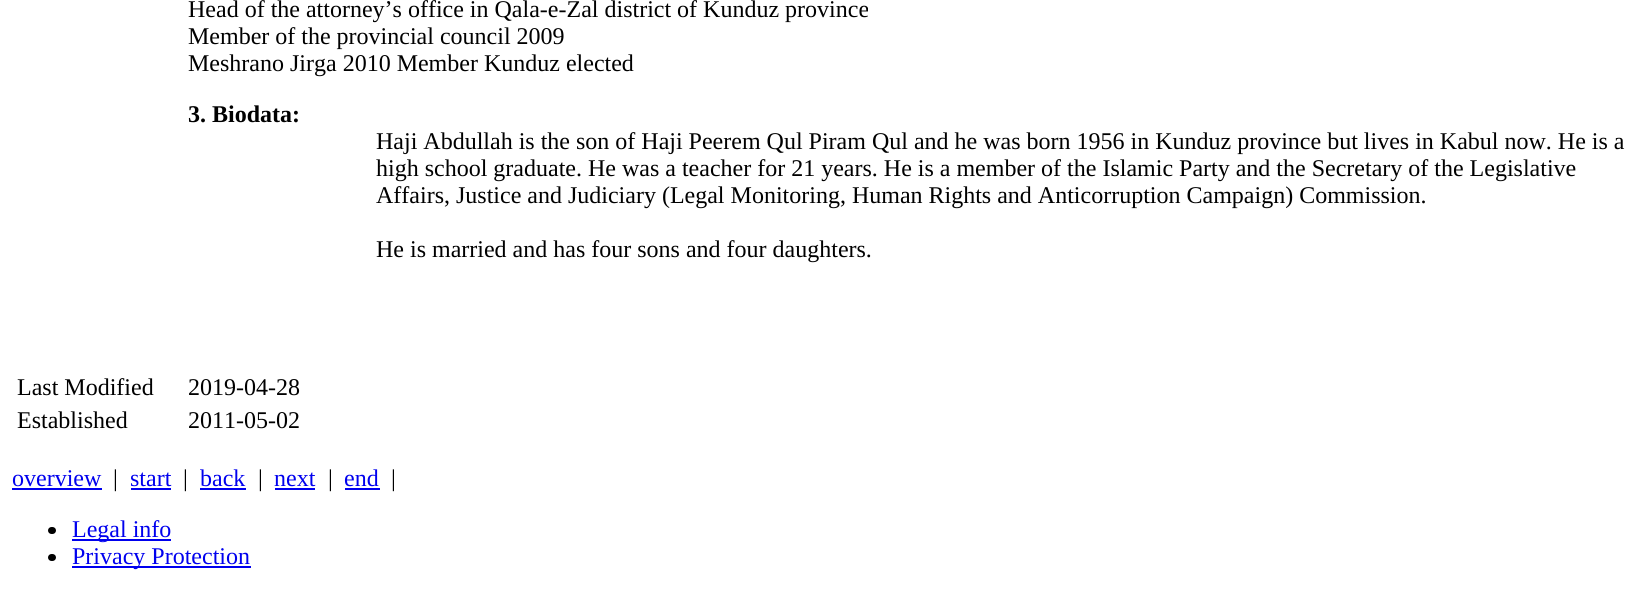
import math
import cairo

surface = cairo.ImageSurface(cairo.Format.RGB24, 1644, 593)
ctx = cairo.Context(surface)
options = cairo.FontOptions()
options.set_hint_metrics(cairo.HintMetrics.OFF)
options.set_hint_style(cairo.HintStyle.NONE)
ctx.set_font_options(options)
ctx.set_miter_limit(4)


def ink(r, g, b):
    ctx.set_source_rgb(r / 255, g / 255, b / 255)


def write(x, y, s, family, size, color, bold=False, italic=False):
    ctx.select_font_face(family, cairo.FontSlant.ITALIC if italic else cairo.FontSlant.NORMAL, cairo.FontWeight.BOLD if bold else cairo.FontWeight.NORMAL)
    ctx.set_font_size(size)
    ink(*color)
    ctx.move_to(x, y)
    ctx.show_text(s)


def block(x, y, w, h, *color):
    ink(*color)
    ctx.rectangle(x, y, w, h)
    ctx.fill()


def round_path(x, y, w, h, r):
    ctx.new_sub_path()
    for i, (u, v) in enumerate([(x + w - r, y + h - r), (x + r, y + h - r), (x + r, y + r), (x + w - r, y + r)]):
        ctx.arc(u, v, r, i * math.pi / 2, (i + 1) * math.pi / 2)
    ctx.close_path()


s1 = dict(family="Liberation Serif", size=24, color=(0, 0, 0))
s2 = dict(family="Liberation Serif", size=24, color=(0, 0, 0), bold=True)
s3 = dict(family="Liberation Serif", size=24, color=(0, 0, 238))

ink(255, 255, 255)
ctx.paint()
write(188, 17, "Head of the attorney’s office in Qala-e-Zal district of Kunduz province", **s1)
write(188, 44, "Member of the provincial council 2009", **s1)
write(188, 71, "Meshrano Jirga 2010 Member Kunduz elected", **s1)
write(188, 122, "3. Biodata:", **s2)
write(376, 149, "Haji Abdullah is the son of Haji Peerem Qul Piram Qul and he was born 1956 in Kunduz province but lives in Kabul now. He is a", **s1)
write(376, 176, "high school graduate. He was a teacher for 21 years. He is a member of the Islamic Party and the Secretary of the Legislative", **s1)
write(376, 203, "Affairs, Justice and Judiciary (Legal Monitoring, Human Rights and Anticorruption Campaign) Commission.", **s1)
write(376, 257, "He is married and has four sons and four daughters.", **s1)
write(17, 395, "Last Modified", **s1)
write(188, 395, "2019-04-28", **s1)
write(17, 428, "Established", **s1)
write(188, 428, "2011-05-02", **s1)
write(12, 486, "overview", **s3)
block(12, 488, 90, 2, 0, 0, 238)
write(113, 486, "|", **s1)
write(130, 486, "start", **s3)
block(131, 488, 40, 2, 0, 0, 238)
write(183, 486, "|", **s1)
write(200, 486, "back", **s3)
block(200, 488, 46, 2, 0, 0, 238)
write(258, 486, "|", **s1)
write(274, 486, "next", **s3)
block(275, 488, 40, 2, 0, 0, 238)
write(328, 486, "|", **s1)
write(344, 486, "end", **s3)
block(345, 488, 35, 2, 0, 0, 238)
write(391, 486, "|", **s1)
round_path(48, 527, 8, 7, 3.5)
ctx.fill()
block(72, 539, 99, 2, 0, 0, 238)
write(72, 537, "Legal info", **s3)
ink(0, 0, 0)
round_path(48, 554, 8, 7, 3.5)
ctx.fill()
block(72, 566, 179, 2, 0, 0, 238)
write(72, 564, "Privacy Protection", **s3)
surface.write_to_png("screenshot.png")
